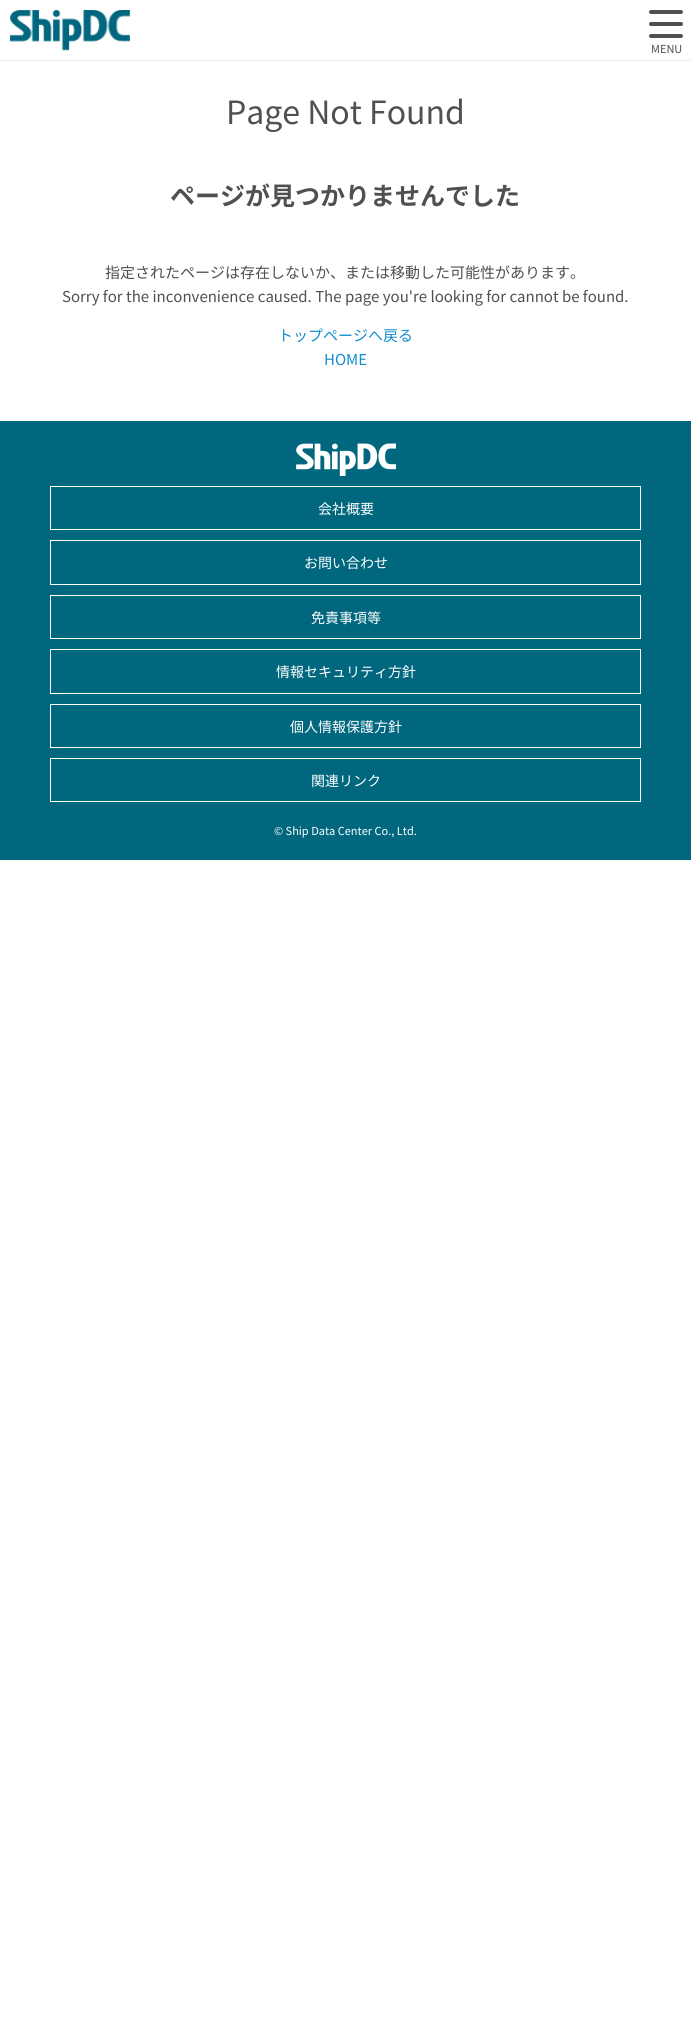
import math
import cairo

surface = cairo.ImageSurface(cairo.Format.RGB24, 691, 2040)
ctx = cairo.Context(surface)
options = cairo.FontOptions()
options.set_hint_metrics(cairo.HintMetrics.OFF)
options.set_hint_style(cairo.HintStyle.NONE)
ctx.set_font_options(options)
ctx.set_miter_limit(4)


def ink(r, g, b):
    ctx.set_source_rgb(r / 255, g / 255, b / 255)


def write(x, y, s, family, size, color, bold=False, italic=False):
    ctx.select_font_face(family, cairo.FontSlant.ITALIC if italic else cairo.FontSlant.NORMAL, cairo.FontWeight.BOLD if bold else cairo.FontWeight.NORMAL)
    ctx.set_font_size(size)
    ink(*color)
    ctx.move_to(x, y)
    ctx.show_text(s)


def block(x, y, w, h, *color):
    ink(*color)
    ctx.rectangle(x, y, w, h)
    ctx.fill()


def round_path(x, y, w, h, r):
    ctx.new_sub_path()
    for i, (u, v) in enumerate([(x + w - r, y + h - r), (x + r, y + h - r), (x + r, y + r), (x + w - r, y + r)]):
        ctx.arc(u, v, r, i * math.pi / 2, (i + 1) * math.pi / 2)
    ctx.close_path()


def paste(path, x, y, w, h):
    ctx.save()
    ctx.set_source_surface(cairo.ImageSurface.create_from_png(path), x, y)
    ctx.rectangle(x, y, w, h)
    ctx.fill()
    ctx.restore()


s1 = dict(family="Noto Sans JP", size=11, color=(80, 80, 80))
s2 = dict(family="Noto Sans JP", size=32, color=(80, 80, 80))
s3 = dict(family="Noto Sans JP", size=25, color=(80, 80, 80), bold=True)
s4 = dict(family="Noto Sans JP", size=15, color=(80, 80, 80))
s5 = dict(family="Noto Sans JP", size=15, color=(16, 140, 207))
s6 = dict(family="Noto Sans JP", size=14, color=(255, 255, 255))
s7 = dict(family="Noto Sans JP", size=11, color=(255, 255, 255))

ink(255, 255, 255)
ctx.paint()
paste("pic1.png", 10, 10, 120, 41)
block(0, 60, 691, 1, 234, 234, 234)
ink(80, 80, 80)
round_path(649, 10, 34, 4, 2)
ctx.fill()
round_path(649, 22, 34, 4, 2)
ctx.fill()
round_path(649, 34, 34, 4, 2)
ctx.fill()
write(651, 53, "MENU", **s1)
write(226, 124, "Page Not Found", **s2)
write(170, 205, "ページが見つかりませんでした", **s3)
write(105, 278, "指定されたページは存在しないか、または移動した可能性があります。", **s4)
write(62, 302, "Sorry for the inconvenience caused. The page you're looking for cannot be found.", **s4)
write(278, 341, "トップページへ戻る", **s5)
write(324, 365, "HOME", **s5)
block(0, 421, 691, 439, 0, 103, 127)
paste("pic2.png", 296, 443, 100, 33)
ctx.rectangle(50.5, 486.5, 590, 43)
ink(255, 255, 255)
ctx.set_line_width(1)
ctx.stroke()
write(318, 514, "会社概要", **s6)
ctx.rectangle(50.5, 540.5, 590, 44)
ctx.stroke()
write(304, 568, "お問い合わせ", **s6)
ctx.rectangle(50.5, 595.5, 590, 43)
ctx.stroke()
write(311, 623, "免責事項等", **s6)
ctx.rectangle(50.5, 649.5, 590, 44)
ctx.stroke()
write(276, 677, "情報セキュリティ方針", **s6)
ctx.rectangle(50.5, 704.5, 590, 43)
ctx.stroke()
write(290, 732, "個人情報保護方針", **s6)
ctx.rectangle(50.5, 758.5, 590, 43)
ctx.stroke()
write(311, 786, "関連リンク", **s6)
write(274, 835, "© Ship Data Center Co., Ltd.", **s7)
surface.write_to_png("screenshot.png")
